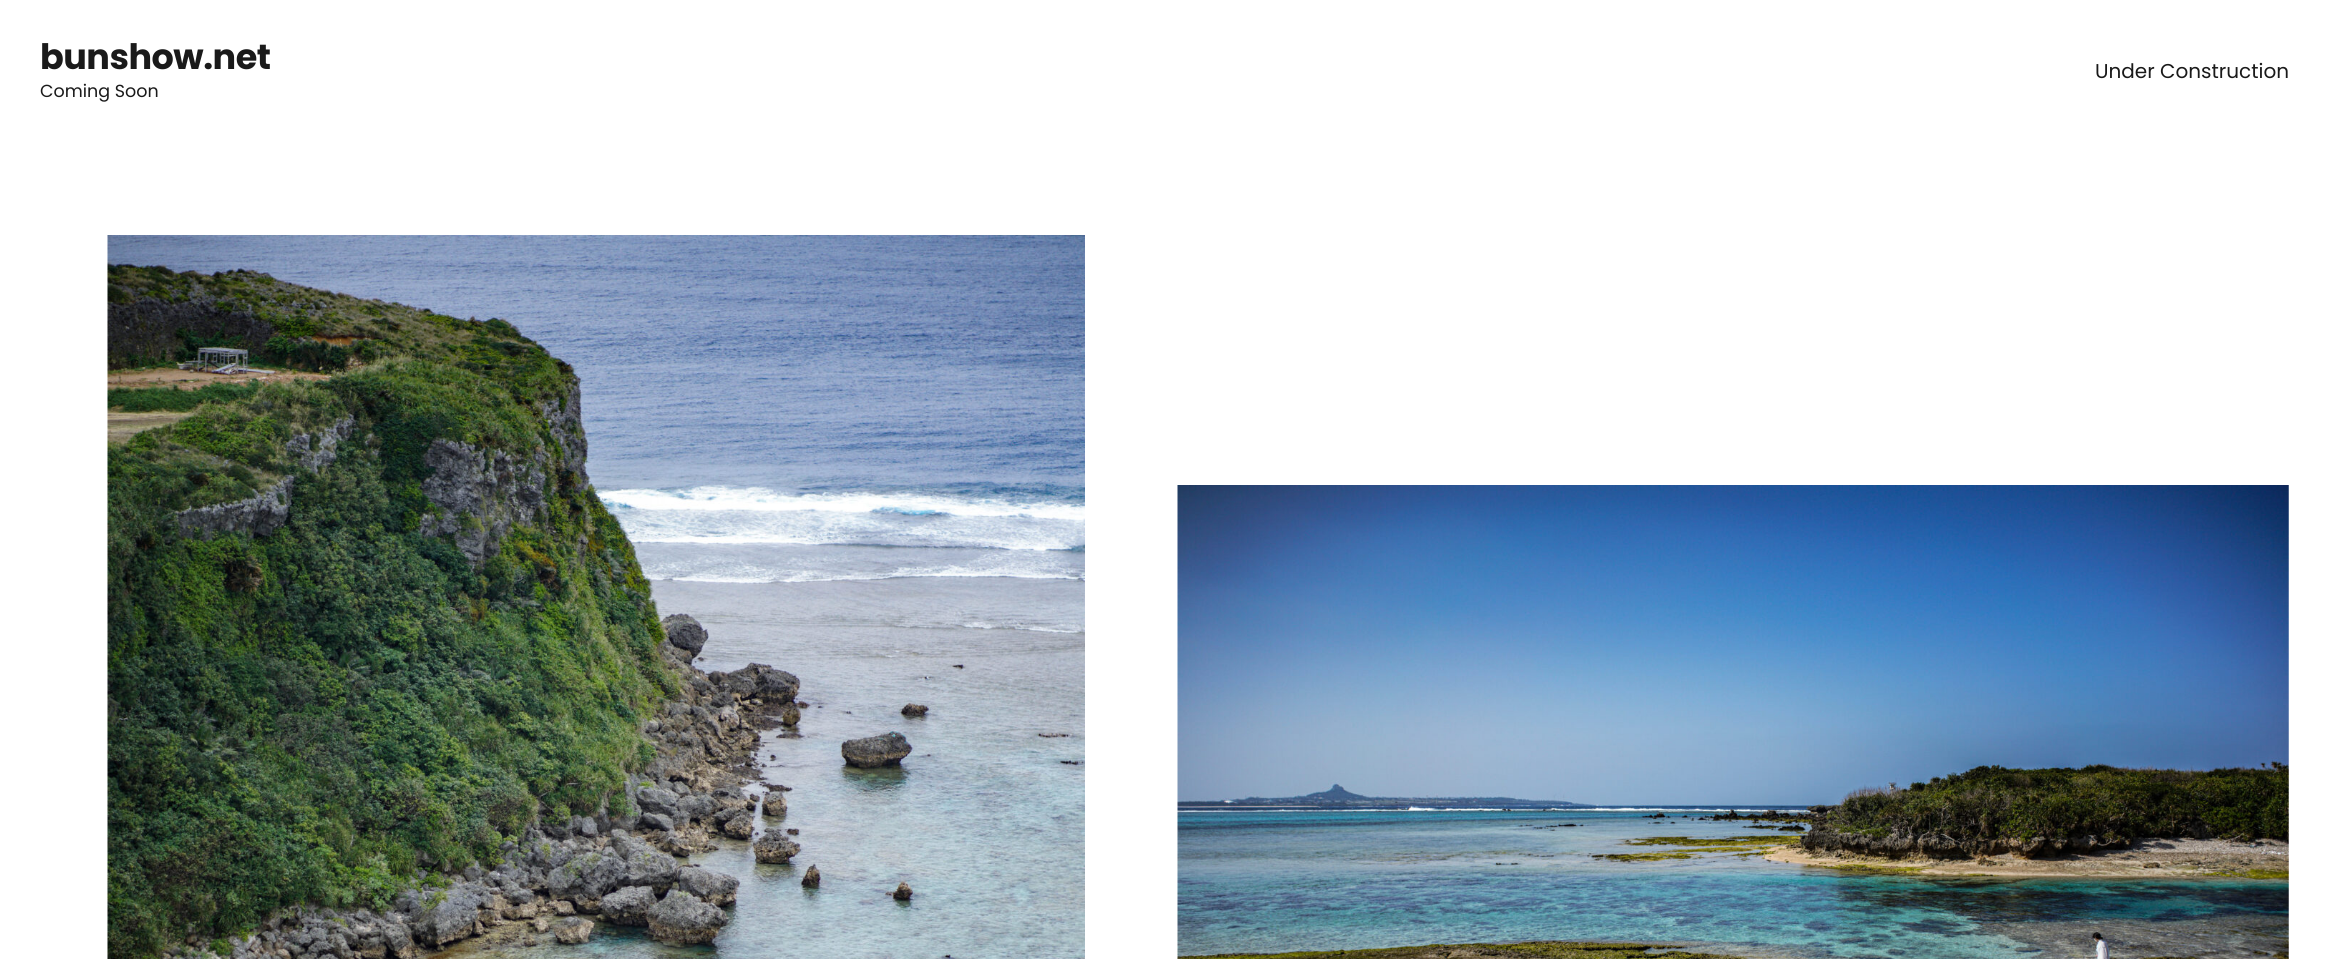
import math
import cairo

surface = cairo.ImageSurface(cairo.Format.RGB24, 2328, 959)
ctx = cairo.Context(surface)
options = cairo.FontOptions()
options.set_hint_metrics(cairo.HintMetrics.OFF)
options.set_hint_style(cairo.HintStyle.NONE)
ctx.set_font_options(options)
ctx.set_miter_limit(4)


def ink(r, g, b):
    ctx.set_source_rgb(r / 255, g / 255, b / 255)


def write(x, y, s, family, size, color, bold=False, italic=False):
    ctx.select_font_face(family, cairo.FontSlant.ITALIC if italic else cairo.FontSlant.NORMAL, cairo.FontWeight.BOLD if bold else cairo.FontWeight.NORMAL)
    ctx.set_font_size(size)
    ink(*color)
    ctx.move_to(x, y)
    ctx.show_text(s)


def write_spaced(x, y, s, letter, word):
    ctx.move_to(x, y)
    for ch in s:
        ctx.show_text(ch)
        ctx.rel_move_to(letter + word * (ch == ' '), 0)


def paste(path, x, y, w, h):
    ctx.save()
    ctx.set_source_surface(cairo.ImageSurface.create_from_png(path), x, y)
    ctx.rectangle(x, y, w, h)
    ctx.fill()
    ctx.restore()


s1 = dict(family="Poppins", size=17.5, color=(26, 26, 26))
s2 = dict(family="Poppins", size=20, color=(26, 26, 26))

ink(255, 255, 255)
ctx.paint()
ctx.select_font_face("Poppins", cairo.FontSlant.NORMAL, cairo.FontWeight.BOLD)
ctx.set_font_size(35)
ink(26, 26, 26)
write_spaced(40, 69, "bunshow.net", -0.5, 0)
write(40, 97, "Coming Soon", **s1)
write(2095, 78, "Under Construction", **s2)
paste("pic1.png", 107, 235, 978, 724)
paste("pic2.png", 1177, 485, 1112, 474)
surface.write_to_png("screenshot.png")
